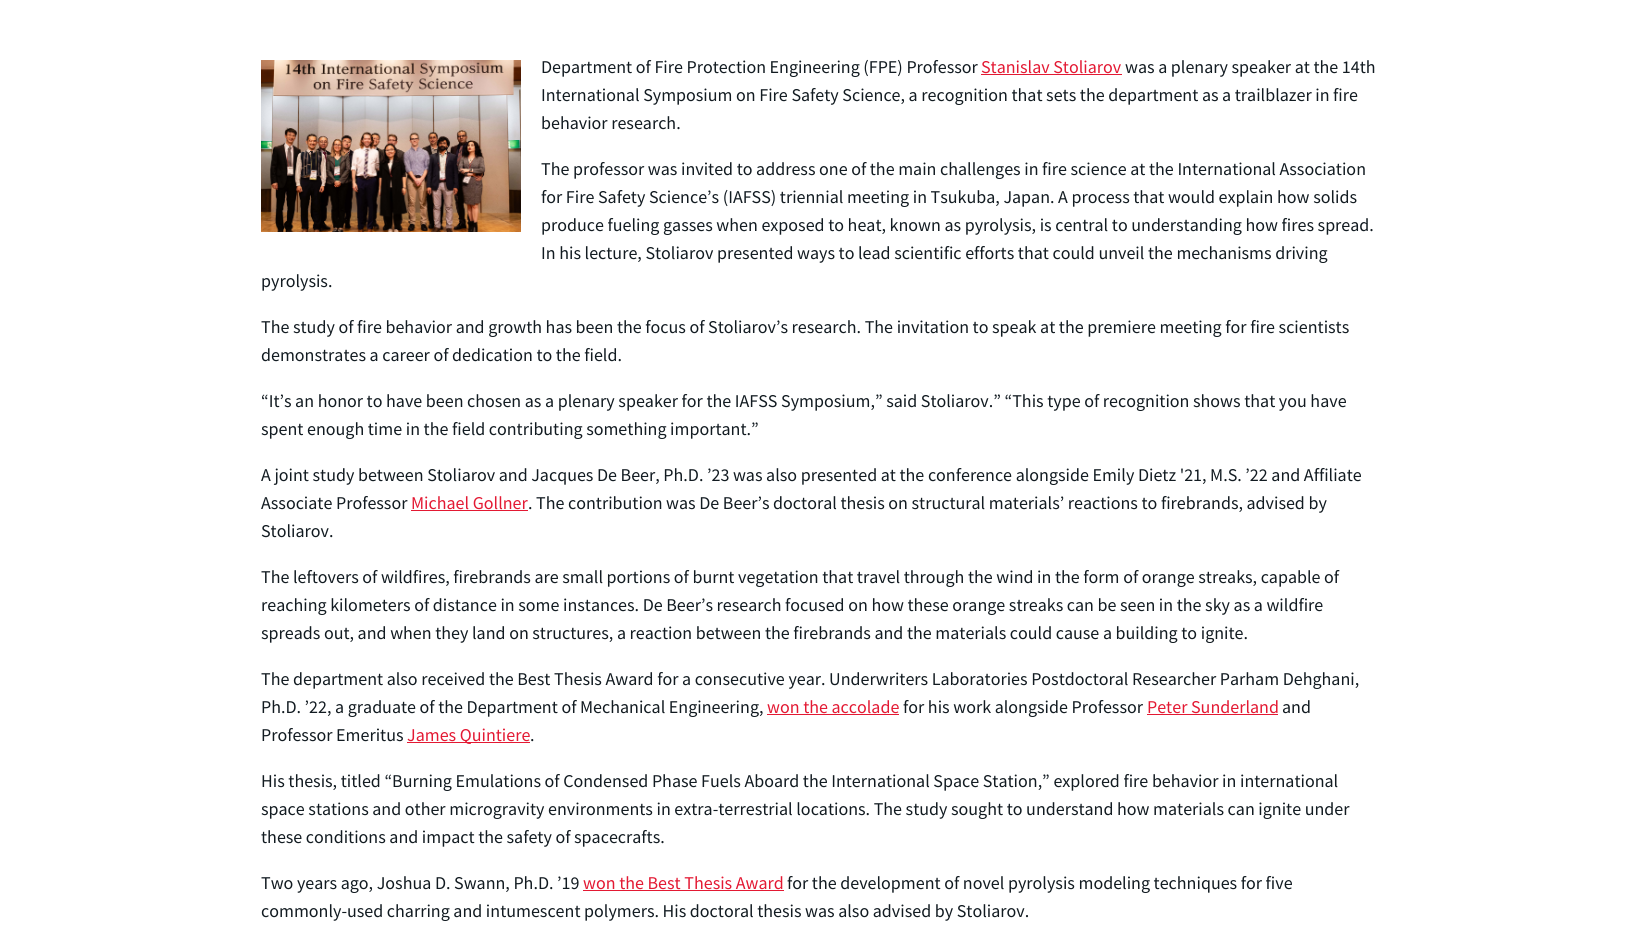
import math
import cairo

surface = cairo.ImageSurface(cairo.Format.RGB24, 1642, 944)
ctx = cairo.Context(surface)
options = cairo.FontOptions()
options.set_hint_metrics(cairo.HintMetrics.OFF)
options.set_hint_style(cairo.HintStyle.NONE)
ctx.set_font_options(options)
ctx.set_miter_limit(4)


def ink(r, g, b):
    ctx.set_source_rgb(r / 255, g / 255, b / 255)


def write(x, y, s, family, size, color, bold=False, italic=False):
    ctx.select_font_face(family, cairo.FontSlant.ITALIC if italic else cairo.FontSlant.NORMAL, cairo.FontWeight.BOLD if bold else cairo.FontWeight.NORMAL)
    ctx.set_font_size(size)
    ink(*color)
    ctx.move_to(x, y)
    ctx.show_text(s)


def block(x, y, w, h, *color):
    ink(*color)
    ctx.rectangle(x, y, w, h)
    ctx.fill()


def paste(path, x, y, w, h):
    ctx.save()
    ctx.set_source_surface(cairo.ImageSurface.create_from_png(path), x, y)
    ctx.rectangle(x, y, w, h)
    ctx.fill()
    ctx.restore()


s1 = dict(family="Source Sans Pro", size=18, color=(18, 27, 33))
s2 = dict(family="Source Sans Pro", size=18, color=(227, 25, 51))

ink(255, 255, 255)
ctx.paint()
paste("pic1.png", 261, 60, 260, 172)
write(541, 73, "Department of Fire Protection Engineering (FPE) Professor", **s1)
write(981, 73, "Stanislav Stoliarov", **s2)
block(981, 74, 141, 1, 227, 25, 51)
write(1125, 73, "was a plenary speaker at the 14th", **s1)
write(541, 101, "International Symposium on Fire Safety Science, a recognition that sets the department as a trailblazer in fire", **s1)
write(541, 129, "behavior research.", **s1)
write(541, 175, "The professor was invited to address one of the main challenges in fire science at the International Association", **s1)
write(541, 203, "for Fire Safety Science’s (IAFSS) triennial meeting in Tsukuba, Japan. A process that would explain how solids", **s1)
write(541, 231, "produce fueling gasses when exposed to heat, known as pyrolysis, is central to understanding how fires spread.", **s1)
write(541, 259, "In his lecture, Stoliarov presented ways to lead scientific efforts that could unveil the mechanisms driving", **s1)
write(261, 287, "pyrolysis.", **s1)
write(261, 333, "The study of fire behavior and growth has been the focus of Stoliarov’s research. The invitation to speak at the premiere meeting for fire scientists", **s1)
write(261, 361, "demonstrates a career of dedication to the field.", **s1)
write(261, 407, "“It’s an honor to have been chosen as a plenary speaker for the IAFSS Symposium,” said Stoliarov.” “This type of recognition shows that you have", **s1)
write(261, 435, "spent enough time in the field contributing something important.”", **s1)
write(261, 481, "A joint study between Stoliarov and Jacques De Beer, Ph.D. ’23 was also presented at the conference alongside Emily Dietz '21, M.S. ’22 and Affiliate", **s1)
write(261, 509, "Associate Professor", **s1)
write(411, 509, "Michael Gollner", **s2)
block(411, 510, 117, 1, 227, 25, 51)
write(528, 509, ". The contribution was De Beer’s doctoral thesis on structural materials’ reactions to firebrands, advised by", **s1)
write(261, 537, "Stoliarov.", **s1)
write(261, 583, "The leftovers of wildfires, firebrands are small portions of burnt vegetation that travel through the wind in the form of orange streaks, capable of", **s1)
write(261, 611, "reaching kilometers of distance in some instances. De Beer’s research focused on how these orange streaks can be seen in the sky as a wildfire", **s1)
write(261, 639, "spreads out, and when they land on structures, a reaction between the firebrands and the materials could cause a building to ignite.", **s1)
write(261, 685, "The department also received the Best Thesis Award for a consecutive year. Underwriters Laboratories Postdoctoral Researcher Parham Dehghani,", **s1)
write(261, 713, "Ph.D. ’22, a graduate of the Department of Mechanical Engineering,", **s1)
write(767, 713, "won the accolade", **s2)
block(767, 714, 132, 1, 227, 25, 51)
write(903, 713, "for his work alongside Professor", **s1)
write(1147, 713, "Peter Sunderland", **s2)
block(1147, 714, 131, 1, 227, 25, 51)
write(1282, 713, "and", **s1)
write(261, 741, "Professor Emeritus", **s1)
block(407, 742, 123, 1, 227, 25, 51)
write(407, 741, "James Quintiere", **s2)
write(530, 741, ".", **s1)
write(261, 787, "His thesis, titled “Burning Emulations of Condensed Phase Fuels Aboard the International Space Station,” explored fire behavior in international", **s1)
write(261, 815, "space stations and other microgravity environments in extra-terrestrial locations. The study sought to understand how materials can ignite under", **s1)
write(261, 843, "these conditions and impact the safety of spacecrafts.", **s1)
write(261, 889, "Two years ago, Joshua D. Swann, Ph.D. ’19", **s1)
write(583, 889, "won the Best Thesis Award", **s2)
block(583, 890, 201, 1, 227, 25, 51)
write(787, 889, "for the development of novel pyrolysis modeling techniques for five", **s1)
write(261, 917, "commonly-used charring and intumescent polymers. His doctoral thesis was also advised by Stoliarov.", **s1)
surface.write_to_png("screenshot.png")
